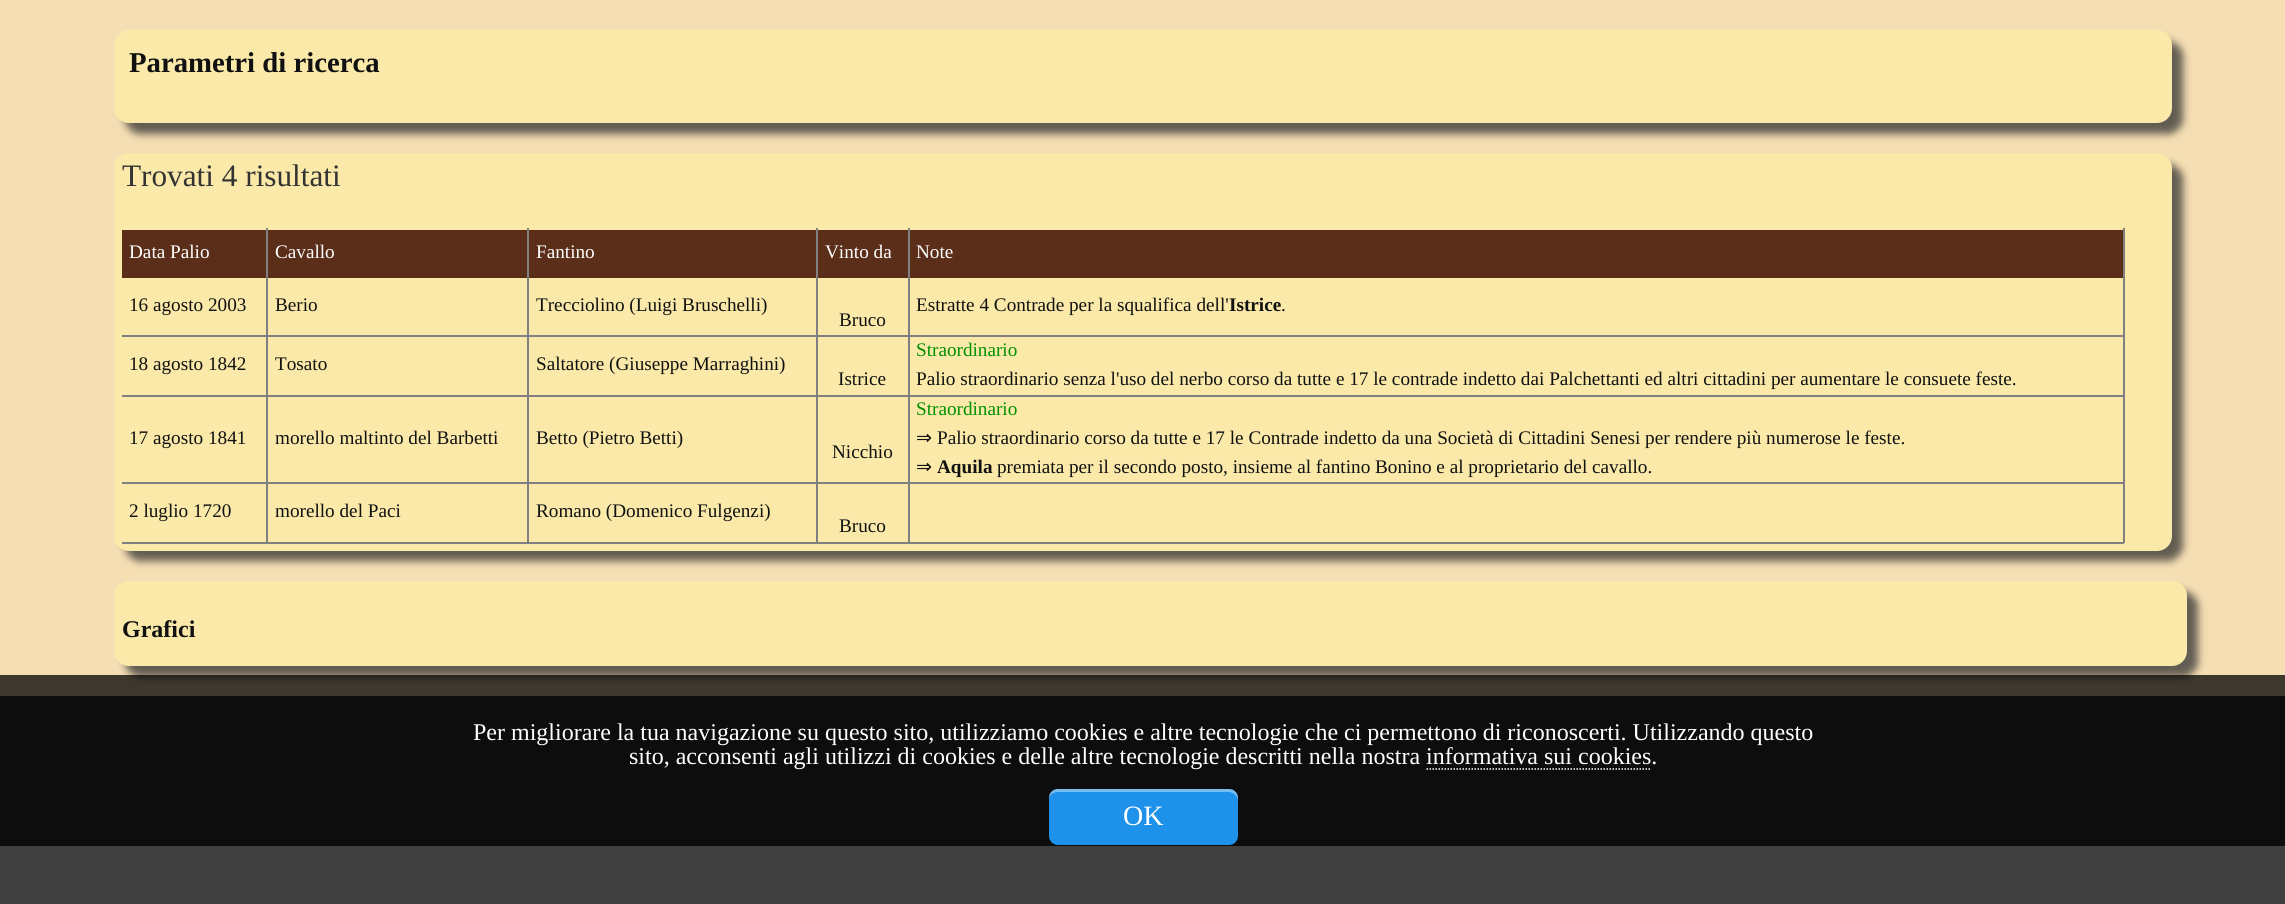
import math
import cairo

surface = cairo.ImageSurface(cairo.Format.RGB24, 2285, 904)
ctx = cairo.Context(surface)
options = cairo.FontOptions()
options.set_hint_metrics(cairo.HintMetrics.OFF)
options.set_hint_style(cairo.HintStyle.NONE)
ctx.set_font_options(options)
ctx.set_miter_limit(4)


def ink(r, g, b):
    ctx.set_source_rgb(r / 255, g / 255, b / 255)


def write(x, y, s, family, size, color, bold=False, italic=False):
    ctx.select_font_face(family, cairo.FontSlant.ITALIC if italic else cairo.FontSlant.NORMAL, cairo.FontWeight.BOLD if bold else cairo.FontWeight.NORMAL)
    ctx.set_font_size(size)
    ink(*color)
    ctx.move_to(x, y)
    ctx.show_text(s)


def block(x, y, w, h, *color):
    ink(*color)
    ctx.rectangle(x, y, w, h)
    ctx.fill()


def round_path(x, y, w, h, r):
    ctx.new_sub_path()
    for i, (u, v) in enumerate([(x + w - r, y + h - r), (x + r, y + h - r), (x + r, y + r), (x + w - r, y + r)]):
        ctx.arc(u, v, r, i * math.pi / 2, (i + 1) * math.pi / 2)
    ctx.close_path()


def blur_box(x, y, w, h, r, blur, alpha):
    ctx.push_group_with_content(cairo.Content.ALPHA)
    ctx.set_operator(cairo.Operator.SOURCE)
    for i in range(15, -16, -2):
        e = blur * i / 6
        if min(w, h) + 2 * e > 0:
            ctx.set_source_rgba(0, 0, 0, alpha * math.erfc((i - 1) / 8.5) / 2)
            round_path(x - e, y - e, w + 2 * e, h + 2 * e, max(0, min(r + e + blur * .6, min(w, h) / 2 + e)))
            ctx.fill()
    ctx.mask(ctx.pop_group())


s1 = dict(family="Liberation Serif", size=28.75, color=(17, 17, 17), bold=True)
s2 = dict(family="Liberation Serif", size=31.25, color=(51, 51, 51))
s3 = dict(family="Liberation Serif", size=19.2, color=(255, 255, 255))
s4 = dict(family="Liberation Serif", size=19.2, color=(17, 17, 17))
s5 = dict(family="Liberation Serif", size=19.2, color=(17, 17, 17), bold=True)
s6 = dict(family="Liberation Serif", size=19.2, color=(0, 144, 0))
s7 = dict(family="DejaVu Sans", size=19.2, color=(17, 17, 17))
s8 = dict(family="Liberation Serif", size=24, color=(17, 17, 17), bold=True)
s9 = dict(family="Liberation Serif", size=24, color=(255, 255, 255))
s10 = dict(family="Liberation Serif", size=28, color=(255, 255, 255))

ink(245, 222, 179)
ctx.paint()
ink(50, 50, 50)
blur_box(125, 41, 2058, 93, 15, 4, 0.75)
ink(250, 233, 169)
round_path(114, 30, 2058, 93, 15)
ctx.fill()
write(129, 72, "Parametri di ricerca", **s1)
ink(50, 50, 50)
blur_box(125, 164, 2058, 397, 15, 4, 0.75)
ink(250, 233, 169)
round_path(114, 153, 2058, 398, 15)
ctx.fill()
write(122, 186, "Trovati 4 risultati", **s2)
block(122, 230, 2001, 48, 90, 46, 25)
write(129, 258, "Data Palio", **s3)
write(275, 258, "Cavallo", **s3)
write(536, 258, "Fantino", **s3)
write(825, 258, "Vinto da", **s3)
write(916, 258, "Note", **s3)
block(122, 335, 2002, 2, 128, 128, 128)
write(129, 311, "16 agosto 2003", **s4)
write(275, 311, "Berio", **s4)
write(536, 311, "Trecciolino (Luigi Bruschelli)", **s4)
write(916, 311, "Estratte 4 Contrade per la squalifica dell'", **s4)
write(1229, 311, "Istrice", **s5)
write(1281, 311, ".", **s4)
write(839, 326, "Bruco", **s4)
block(122, 395, 2002, 2, 128, 128, 128)
write(129, 370, "18 agosto 1842", **s4)
write(275, 370, "Tosato", **s4)
write(536, 370, "Saltatore (Giuseppe Marraghini)", **s4)
write(916, 356, "Straordinario", **s6)
write(916, 385, "Palio straordinario senza l'uso del nerbo corso da tutte e 17 le contrade indetto dai Palchettanti ed altri cittadini per aumentare le consuete feste.", **s4)
write(838, 385, "Istrice", **s4)
block(122, 482, 2002, 2, 128, 128, 128)
write(129, 444, "17 agosto 1841", **s4)
write(275, 444, "morello maltinto del Barbetti", **s4)
write(536, 444, "Betto (Pietro Betti)", **s4)
write(916, 415, "Straordinario", **s6)
write(916, 444, "⇒", **s7)
write(937, 444, "Palio straordinario corso da tutte e 17 le Contrade indetto da una Società di Cittadini Senesi per rendere più numerose le feste.", **s4)
write(916, 473, "⇒", **s7)
write(937, 473, "Aquila", **s5)
write(997, 473, "premiata per il secondo posto, insieme al fantino Bonino e al proprietario del cavallo.", **s4)
write(832, 458, "Nicchio", **s4)
block(122, 542, 2002, 2, 128, 128, 128)
block(266, 228, 2, 315, 128, 128, 128)
write(129, 517, "2 luglio 1720", **s4)
block(527, 228, 2, 315, 128, 128, 128)
write(275, 517, "morello del Paci", **s4)
block(816, 228, 2, 315, 128, 128, 128)
write(536, 517, "Romano (Domenico Fulgenzi)", **s4)
block(2123, 228, 2, 315, 128, 128, 128)
block(908, 228, 2, 315, 128, 128, 128)
write(839, 532, "Bruco", **s4)
ink(50, 50, 50)
blur_box(125, 591, 2073, 86, 15, 4, 0.75)
ink(250, 233, 169)
round_path(114, 581, 2073, 85, 15)
ctx.fill()
write(122, 637, "Grafici", **s8)
block(0, 696, 2285, 150, 51, 51, 51)
block(0, 846, 2285, 58, 255, 255, 255)
ctx.set_source_rgba(0, 0, 0, 0.75)
ctx.rectangle(0, 675, 2285, 229)
ctx.fill()
write(473, 740, "Per migliorare la tua navigazione su questo sito, utilizziamo cookies e altre tecnologie che ci permettono di riconoscerti. Utilizzando questo", **s9)
write(629, 764, "sito, acconsenti agli utilizzi di cookies e delle altre tecnologie descritti nella nostra informativa sui cookies.", **s9)
ctx.new_path()
ctx.move_to(1426.5, 769)
ctx.line_to(1651.5, 769)
ctx.set_line_width(1.5)
ctx.set_dash([1.5, 1.5])
ctx.stroke()
ink(30, 145, 234)
round_path(1049, 789, 189, 56, 9)
ctx.fill()
ctx.set_source_rgba(1, 1, 1, 0.4)
ctx.new_path()
ctx.move_to(1058, 792)
ctx.line_to(1228, 792)
ctx.curve_to(1233, 792, 1238, 796, 1238, 801)
ctx.line_to(1238, 798)
ctx.curve_to(1238, 793, 1234, 789, 1229, 789)
ctx.line_to(1058, 789)
ctx.curve_to(1053, 789, 1049, 793, 1049, 797)
ctx.curve_to(1051, 794, 1054, 792, 1058, 792)
ctx.close_path()
ctx.fill()
write(1123, 825, "OK", **s10)
surface.write_to_png("screenshot.png")
